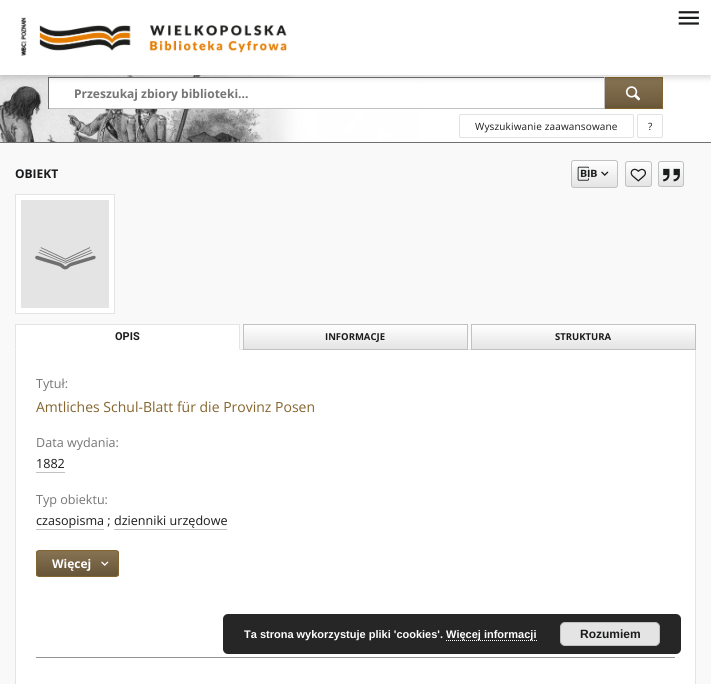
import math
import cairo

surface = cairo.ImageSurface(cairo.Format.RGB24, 711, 684)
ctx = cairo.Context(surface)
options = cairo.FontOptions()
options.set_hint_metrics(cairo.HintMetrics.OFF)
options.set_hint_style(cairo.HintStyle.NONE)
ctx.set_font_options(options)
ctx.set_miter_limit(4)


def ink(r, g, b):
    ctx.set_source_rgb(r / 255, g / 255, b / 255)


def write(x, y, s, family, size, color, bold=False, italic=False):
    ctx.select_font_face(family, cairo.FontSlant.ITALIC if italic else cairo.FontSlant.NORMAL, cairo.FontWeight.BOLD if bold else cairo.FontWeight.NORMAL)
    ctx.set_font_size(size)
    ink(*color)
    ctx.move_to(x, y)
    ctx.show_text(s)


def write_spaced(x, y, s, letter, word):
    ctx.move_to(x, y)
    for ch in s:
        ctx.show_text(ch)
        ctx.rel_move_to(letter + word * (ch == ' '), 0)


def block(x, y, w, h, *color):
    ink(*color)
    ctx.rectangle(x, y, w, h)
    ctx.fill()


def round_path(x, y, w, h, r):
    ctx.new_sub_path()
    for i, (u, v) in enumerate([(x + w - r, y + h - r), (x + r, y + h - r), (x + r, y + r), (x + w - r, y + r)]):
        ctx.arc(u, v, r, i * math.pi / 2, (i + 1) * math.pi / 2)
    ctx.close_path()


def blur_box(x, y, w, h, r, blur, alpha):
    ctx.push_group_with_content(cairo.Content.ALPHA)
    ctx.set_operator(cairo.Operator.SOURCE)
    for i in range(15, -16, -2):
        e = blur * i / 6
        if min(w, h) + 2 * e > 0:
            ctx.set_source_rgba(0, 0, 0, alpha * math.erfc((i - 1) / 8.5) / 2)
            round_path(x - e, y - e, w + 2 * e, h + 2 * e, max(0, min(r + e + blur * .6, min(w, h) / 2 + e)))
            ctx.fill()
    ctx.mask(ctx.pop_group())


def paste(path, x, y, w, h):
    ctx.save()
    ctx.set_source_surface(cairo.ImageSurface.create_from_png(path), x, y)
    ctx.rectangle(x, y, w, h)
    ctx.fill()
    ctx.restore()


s1 = dict(family="Open Sans", size=12, color=(117, 117, 117), bold=True)
s2 = dict(family="Open Sans", size=10, color=(26, 27, 28))
s3 = dict(family="Open Sans", size=12, color=(26, 27, 28), bold=True)
s4 = dict(family="Roboto", size=11, color=(26, 27, 28), bold=True)
s5 = dict(family="Open Sans", size=9.5, color=(26, 27, 28), bold=True)
s6 = dict(family="Open Sans", size=12.6, color=(117, 117, 117))
s7 = dict(family="Open Sans", size=14, color=(133, 101, 46))
s8 = dict(family="Open Sans", size=12.6, color=(26, 27, 28))
s9 = dict(family="Open Sans", size=12, color=(255, 255, 255), bold=True)
s10 = dict(family="Liberation Sans", size=11, color=(255, 255, 255), bold=True)
s11 = dict(family="Liberation Sans", size=12, color=(26, 27, 28), bold=True)

ink(249, 249, 249)
ctx.paint()
paste("pic3.png", 0, 75, 711, 67)
block(49, 78, 369, 30, 255, 255, 255)
block(48, 77, 557, 1, 112, 112, 112)
block(604, 77, 1, 32, 193, 193, 193)
block(48, 108, 557, 1, 193, 193, 193)
block(48, 77, 1, 32, 112, 112, 112)
gradient = cairo.LinearGradient(634, 78, 634, 108)
gradient.add_color_stop_rgba(0, 0.525, 0.451, 0.329, 1)
gradient.add_color_stop_rgba(0.8, 0.447, 0.373, 0.255, 1)
gradient.add_color_stop_rgba(1, 0.404, 0.333, 0.216, 1)
ctx.set_source(gradient)
ctx.rectangle(605, 78, 57, 30)
ctx.fill()
block(605, 77, 58, 1, 133, 101, 46)
block(662, 77, 1, 32, 133, 101, 46)
paste("pic4.png", 625, 86, 16, 15)
ink(0, 0, 0)
blur_box(0, 1, 711, 75, 0, 5, 0.08)
blur_box(0, 4, 711, 75, 0, 2.5, 0.06)
blur_box(1, 3, 709, 73, 0, 2, 0.06)
block(0, 0, 711, 75, 255, 255, 255)
paste("pic1.png", 20, 17, 267, 39)
paste("pic2.png", 678, 11, 21, 14)
block(0, 142, 711, 1, 112, 112, 112)
write(74, 98, "Przeszukaj zbiory biblioteki...", **s1)
block(605, 108, 58, 1, 133, 101, 46)
round_path(459.5, 114.5, 174, 23, 1.5)
ink(226, 226, 226)
ctx.set_line_width(1)
ctx.stroke()
ctx.select_font_face("Open Sans")
ctx.set_font_size(10)
ink(26, 27, 28)
write_spaced(475, 130, "Wyszukiwanie zaawansowane", 0.15, 0)
round_path(637.5, 114.5, 25, 23, 1.5)
ink(226, 226, 226)
ctx.stroke()
write(648, 130, "?", **s2)
write(15, 178, "OBIEKT", **s3)
ctx.save()
round_path(571, 160, 47, 28, 3)
ctx.clip()
gradient = cairo.LinearGradient(595, 161, 595, 187)
gradient.add_color_stop_rgba(0, 1, 1, 1, 1)
gradient.add_color_stop_rgba(1, 0.894, 0.894, 0.894, 1)
ctx.set_source(gradient)
ctx.rectangle(571, 161, 47, 26)
ctx.fill()
ctx.restore()
round_path(571.5, 160.5, 46, 27, 2.5)
ink(193, 193, 193)
ctx.stroke()
paste("pic5.png", 577, 166, 20, 15)
paste("pic6.png", 601, 171, 8, 5)
ctx.save()
round_path(625, 161, 27, 26, 3)
ctx.clip()
gradient = cairo.LinearGradient(639, 162, 639, 186)
gradient.add_color_stop_rgba(0, 1, 1, 1, 1)
gradient.add_color_stop_rgba(1, 0.894, 0.894, 0.894, 1)
ctx.set_source(gradient)
ctx.rectangle(625, 162, 27, 24)
ctx.fill()
ctx.restore()
round_path(625.5, 161.5, 26, 25, 2.5)
ctx.stroke()
paste("pic7.png", 630, 168, 16, 14)
ctx.save()
round_path(658, 161, 26, 26, 3)
ctx.clip()
gradient = cairo.LinearGradient(671, 162, 671, 186)
gradient.add_color_stop_rgba(0, 1, 1, 1, 1)
gradient.add_color_stop_rgba(1, 0.894, 0.894, 0.894, 1)
ctx.set_source(gradient)
ctx.rectangle(658, 162, 26, 24)
ctx.fill()
ctx.restore()
round_path(658.5, 161.5, 25, 25, 2.5)
ctx.stroke()
paste("pic8.png", 663, 168, 17, 14)
ink(255, 255, 255)
ctx.rectangle(15.5, 194.5, 99, 119)
ctx.fill_preserve()
ink(228, 228, 228)
ctx.stroke()
block(21, 200, 88, 108, 228, 228, 228)
paste("pic9.png", 35, 247, 61, 23)
block(240, 349, 231, 1, 228, 228, 228)
block(15, 325, 225, 25, 255, 255, 255)
block(15, 324, 225, 1, 228, 228, 228)
ctx.new_path()
ctx.move_to(240, 324)
ctx.line_to(240, 350)
ctx.line_to(239, 349)
ctx.line_to(239, 325)
ctx.close_path()
ctx.fill()
ctx.new_path()
ctx.move_to(15, 350)
ctx.line_to(15, 324)
ctx.line_to(16, 325)
ctx.line_to(16, 349)
ctx.close_path()
ctx.fill()
write(115, 340, "OPIS", **s4)
gradient = cairo.LinearGradient(356, 325, 356, 349)
gradient.add_color_stop_rgba(0, 1, 1, 1, 1)
gradient.add_color_stop_rgba(1, 0.894, 0.894, 0.894, 1)
ctx.set_source(gradient)
ctx.rectangle(244, 325, 223, 24)
ctx.fill()
ctx.rectangle(243.5, 324.5, 224, 25)
ink(193, 193, 193)
ctx.stroke()
write(325, 340, "INFORMACJE", **s5)
gradient = cairo.LinearGradient(584, 325, 584, 349)
gradient.add_color_stop_rgba(0, 1, 1, 1, 1)
gradient.add_color_stop_rgba(1, 0.894, 0.894, 0.894, 1)
ctx.set_source(gradient)
ctx.rectangle(472, 325, 223, 24)
ctx.fill()
ctx.rectangle(471.5, 324.5, 224, 25)
ink(193, 193, 193)
ctx.stroke()
write(555, 340, "STRUKTURA", **s5)
block(16, 350, 679, 334, 255, 255, 255)
block(695, 350, 1, 334, 228, 228, 228)
block(15, 350, 1, 334, 228, 228, 228)
write(36, 388, "Tytuł:", **s6)
write(36, 412, "Amtliches Schul-Blatt für die Provinz Posen", **s7)
write(36, 447, "Data wydania:", **s6)
write(36, 468, "1882", **s8)
block(36, 472, 29, 1, 193, 193, 193)
write(36, 504, "Typ obiektu:", **s6)
write(36, 525, "czasopisma ; dzienniki urzędowe", **s8)
block(36, 529, 68, 1, 193, 193, 193)
block(114, 529, 113, 1, 193, 193, 193)
ctx.save()
round_path(36, 550, 83, 27, 3)
ctx.clip()
gradient = cairo.LinearGradient(78, 551, 78, 576)
gradient.add_color_stop_rgba(0, 0.525, 0.451, 0.329, 1)
gradient.add_color_stop_rgba(1, 0.404, 0.333, 0.216, 1)
ctx.set_source(gradient)
ctx.rectangle(36, 551, 83, 25)
ctx.fill()
ctx.restore()
round_path(36.5, 550.5, 82, 26, 2.5)
ink(133, 101, 46)
ctx.stroke()
write(52, 568, "Więcej", **s9)
paste("pic10.png", 101, 561, 8, 5)
block(36, 657, 639, 1, 147, 147, 147)
ink(38, 38, 38)
round_path(223, 614, 458, 40, 5)
ctx.fill()
write(244, 638, "Ta strona wykorzystuje pliki 'cookies'.", **s10)
ctx.new_path()
ctx.move_to(446, 640.5)
ctx.line_to(537, 640.5)
ctx.set_dash([1, 1])
ctx.stroke()
write(446, 638, "Więcej informacji", **s10)
ink(228, 228, 228)
round_path(560.5, 622.5, 99, 23, 4.5)
ctx.fill_preserve()
ink(193, 193, 193)
ctx.set_dash([])
ctx.stroke()
write(580, 638, "Rozumiem", **s11)
surface.write_to_png("screenshot.png")
